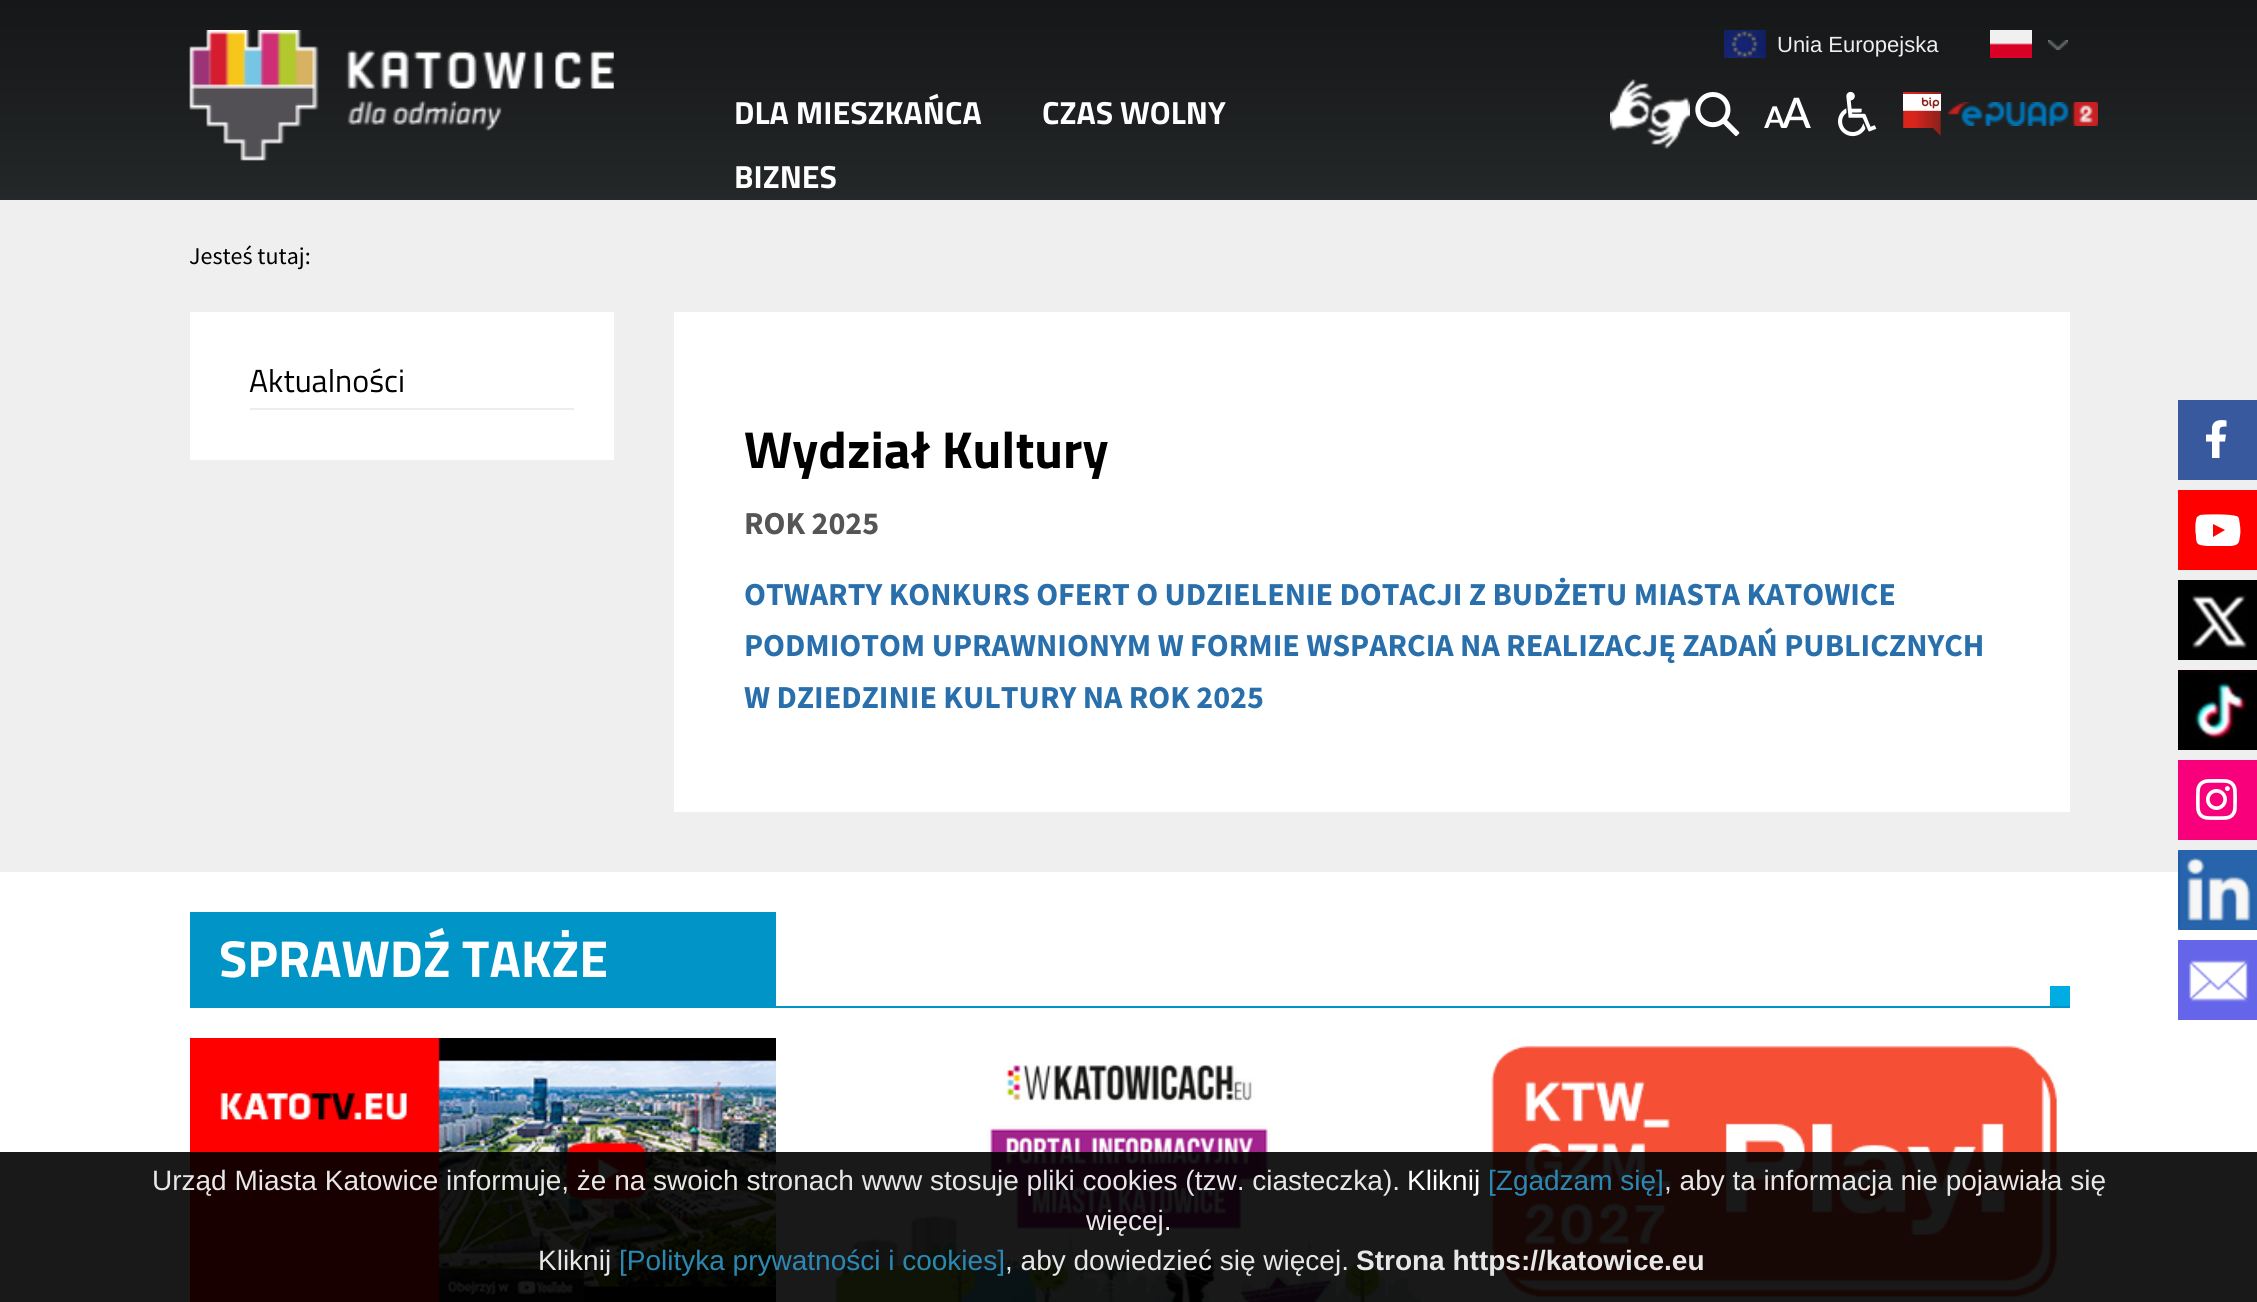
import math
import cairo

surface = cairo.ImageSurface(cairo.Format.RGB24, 2257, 1302)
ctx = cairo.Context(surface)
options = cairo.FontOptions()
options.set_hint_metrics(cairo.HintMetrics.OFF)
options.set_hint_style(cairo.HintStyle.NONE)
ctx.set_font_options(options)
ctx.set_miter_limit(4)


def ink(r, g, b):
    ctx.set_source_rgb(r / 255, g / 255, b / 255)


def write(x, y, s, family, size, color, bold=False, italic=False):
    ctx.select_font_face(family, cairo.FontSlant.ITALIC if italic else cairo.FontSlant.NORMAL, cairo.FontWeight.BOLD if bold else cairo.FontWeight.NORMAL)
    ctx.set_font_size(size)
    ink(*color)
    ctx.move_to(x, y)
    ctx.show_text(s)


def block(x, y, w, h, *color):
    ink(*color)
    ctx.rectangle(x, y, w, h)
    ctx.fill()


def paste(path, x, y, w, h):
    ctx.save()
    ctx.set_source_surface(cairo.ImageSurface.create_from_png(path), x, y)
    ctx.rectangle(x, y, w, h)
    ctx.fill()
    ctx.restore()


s1 = dict(family="Liberation Sans", size=22, color=(238, 238, 238))
s2 = dict(family="Titillium Web", size=32, color=(255, 255, 255), bold=True)
s3 = dict(family="Source Sans Pro", size=24, color=(0, 0, 0))
s4 = dict(family="Titillium Web", size=32, color=(0, 0, 0))
s5 = dict(family="Titillium Web", size=52, color=(0, 0, 0), bold=True)
s6 = dict(family="Source Sans Pro", size=32, color=(85, 85, 85), bold=True)
s7 = dict(family="Source Sans Pro", size=32, color=(40, 111, 172), bold=True)
s8 = dict(family="Titillium Web", size=52, color=(255, 255, 255), bold=True)
s9 = dict(family="Liberation Sans", size=28, color=(232, 231, 231))
s10 = dict(family="Liberation Sans", size=28, color=(255, 255, 255))
s11 = dict(family="Liberation Sans", size=28, color=(44, 136, 179))
s12 = dict(family="Liberation Sans", size=28, color=(232, 231, 231), bold=True)

ink(239, 239, 239)
ctx.paint()
block(0, 0, 2257, 200, 51, 55, 57)
paste("pic1.png", 0, 0, 2257, 200)
paste("pic2.png", 189, 30, 425, 131)
paste("pic3.png", 1724, 30, 42, 28)
write(1777, 52, "Unia Europejska", **s1)
paste("pic4.png", 1990, 30, 42, 28)
paste("pic5.png", 2048, 40, 20, 10)
paste("pic6.png", 1610, 79, 80, 70)
paste("pic7.png", 1695, 92, 45, 45)
paste("pic8.png", 1764, 97, 47, 31)
paste("pic9.png", 1838, 91, 39, 46)
paste("pic10.png", 1903, 92, 38, 44)
paste("pic11.png", 1948, 102, 150, 24)
block(2178, 400, 79, 80, 57, 89, 159)
ink(255, 255, 255)
ctx.new_path()
ctx.move_to(2225, 441.5)
ctx.line_to(2226, 434.5)
ctx.line_to(2219.5, 434.5)
ctx.curve_to(2219.5, 427.5, 2219, 426.5, 2226.5, 426.5)
ctx.line_to(2226.5, 420.5)
ctx.curve_to(2220.5, 419.5, 2213.5, 419.5, 2212, 427)
ctx.line_to(2212, 434.5)
ctx.line_to(2206, 434.5)
ctx.line_to(2206, 441.5)
ctx.line_to(2212, 441.5)
ctx.line_to(2212, 458)
ctx.line_to(2219.5, 458)
ctx.line_to(2219.5, 441.5)
ctx.close_path()
ctx.fill()
block(2178, 490, 79, 80, 255, 0, 0)
ink(255, 255, 255)
ctx.new_path()
ctx.move_to(2239, 519)
ctx.curve_to(2239, 518, 2238, 516, 2236, 516)
ctx.curve_to(2231, 514, 2206, 514, 2200, 515)
ctx.line_to(2197, 517)
ctx.curve_to(2195, 521, 2195, 531, 2196, 536)
ctx.curve_to(2196, 545, 2198, 545, 2207, 546)
ctx.line_to(2231, 546)
ctx.curve_to(2239, 545, 2239, 543, 2240, 536)
ctx.curve_to(2241, 530, 2240, 525, 2239, 519)
ctx.close_path()
ctx.move_to(2213, 537)
ctx.line_to(2213, 524)
ctx.line_to(2225, 530)
ctx.close_path()
ctx.fill()
paste("pic12.png", 2178, 580, 79, 80)
paste("pic13.png", 2178, 670, 79, 80)
paste("pic14.png", 2178, 760, 79, 80)
block(0, 872, 2257, 430, 255, 255, 255)
paste("pic15.png", 2178, 850, 79, 80)
paste("pic16.png", 2178, 940, 79, 80)
write(734, 124, "DLA MIESZKAŃCA", **s2)
write(1042, 124, "CZAS WOLNY", **s2)
write(734, 188, "BIZNES", **s2)
write(189, 264, "Jesteś tutaj:", **s3)
block(190, 312, 424, 148, 255, 255, 255)
block(250, 408, 324, 2, 237, 237, 237)
write(249, 392, "Aktualności", **s4)
block(674, 312, 1396, 500, 255, 255, 255)
write(744, 468, "Wydział Kultury", **s5)
write(744, 534, "ROK 2025", **s6)
write(744, 605, "OTWARTY KONKURS OFERT O UDZIELENIE DOTACJI Z BUDŻETU MIASTA KATOWICE", **s7)
write(744, 656, "PODMIOTOM UPRAWNIONYM W FORMIE WSPARCIA NA REALIZACJĘ ZADAŃ PUBLICZNYCH", **s7)
write(744, 708, "W DZIEDZINIE KULTURY NA ROK 2025", **s7)
block(2050, 986, 20, 20, 0, 173, 226)
block(190, 1006, 1880, 2, 0, 148, 199)
block(190, 912, 586, 94, 0, 148, 199)
write(219, 977, "SPRAWDŹ TAKŻE", **s8)
paste("pic17.png", 190, 1038, 586, 264)
paste("pic18.png", 836, 1064, 586, 238)
paste("pic19.png", 1491, 1038, 566, 261)
ctx.set_source_rgba(0, 0, 0, 0.9)
ctx.rectangle(0, 1152, 2257, 150)
ctx.fill()
write(152, 1190, "Urząd Miasta Katowice informuje, że na swoich stronach www stosuje pliki cookies (tzw. ciasteczka).", **s9)
write(1407, 1190, "Kliknij", **s10)
write(1488, 1190, "[Zgadzam się]", **s11)
write(1664, 1190, ", aby ta informacja nie pojawiała się", **s9)
write(1086, 1230, "więcej.", **s9)
write(538, 1270, "Kliknij", **s9)
write(619, 1270, "[Polityka prywatności i cookies]", **s11)
write(1005, 1270, ", aby dowiedzieć się więcej.", **s9)
write(1356, 1270, "Strona https://katowice.eu", **s12)
surface.write_to_png("screenshot.png")
